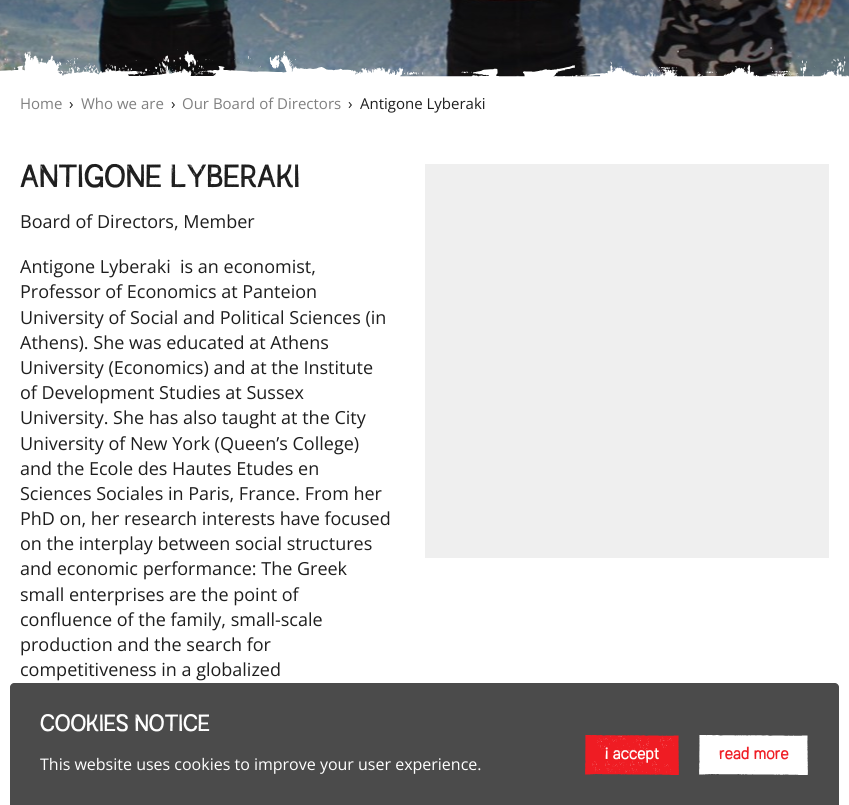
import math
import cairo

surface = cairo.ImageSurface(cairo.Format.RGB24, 849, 805)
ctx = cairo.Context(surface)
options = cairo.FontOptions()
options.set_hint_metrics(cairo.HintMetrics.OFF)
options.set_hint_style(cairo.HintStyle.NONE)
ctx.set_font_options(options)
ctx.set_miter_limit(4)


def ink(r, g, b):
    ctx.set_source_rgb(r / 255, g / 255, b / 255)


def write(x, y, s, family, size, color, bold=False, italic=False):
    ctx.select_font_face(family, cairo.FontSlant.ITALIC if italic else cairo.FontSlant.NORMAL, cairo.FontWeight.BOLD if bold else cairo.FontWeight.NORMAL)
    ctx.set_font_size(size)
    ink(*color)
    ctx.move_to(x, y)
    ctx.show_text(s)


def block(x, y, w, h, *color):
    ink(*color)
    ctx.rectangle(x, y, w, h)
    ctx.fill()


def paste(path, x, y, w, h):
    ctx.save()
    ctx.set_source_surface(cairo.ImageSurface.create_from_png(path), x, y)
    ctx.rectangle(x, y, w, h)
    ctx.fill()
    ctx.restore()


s1 = dict(family="Open Sans", size=15, color=(128, 128, 128))
s2 = dict(family="Open Sans", size=15, color=(30, 30, 30))
s3 = dict(family="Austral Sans", size=30, color=(30, 30, 30))
s4 = dict(family="Open Sans", size=18, color=(30, 30, 30))
s5 = dict(family="Austral Sans", size=22, color=(255, 255, 255))
s6 = dict(family="Open Sans", size=16, color=(255, 255, 255))
s7 = dict(family="Austral Sans", size=16, color=(255, 255, 255))
s8 = dict(family="Austral Sans", size=16, color=(239, 28, 35))

ink(255, 255, 255)
ctx.paint()
paste("pic1.png", 0, 0, 849, 77)
paste("pic2.png", 0, 47, 849, 31)
write(20, 109, "Home", **s1)
write(69, 109, "›", **s2)
write(81, 109, "Who we are", **s1)
write(171, 109, "›", **s2)
write(182, 109, "Our Board of Directors", **s1)
write(348, 109, "›", **s2)
write(360, 109, "Antigone Lyberaki", **s2)
write(20, 187, "ANTIGONE LYBERAKI", **s3)
write(20, 228, "Board of Directors, Member", **s4)
write(20, 273, "Antigone Lyberaki  is an economist,", **s4)
write(20, 298, "Professor of Economics at Panteion", **s4)
write(20, 324, "University of Social and Political Sciences (in", **s4)
write(20, 349, "Athens). She was educated at Athens", **s4)
write(20, 374, "University (Economics) and at the Institute", **s4)
write(20, 399, "of Development Studies at Sussex", **s4)
write(20, 424, "University. She has also taught at the City", **s4)
write(20, 450, "University of New York (Queen’s College)", **s4)
write(20, 475, "and the Ecole des Hautes Etudes en", **s4)
write(20, 500, "Sciences Sociales in Paris, France. From her", **s4)
write(20, 525, "PhD on, her research interests have focused", **s4)
write(20, 550, "on the interplay between social structures", **s4)
write(20, 575, "and economic performance: The Greek", **s4)
write(20, 601, "small enterprises are the point of", **s4)
write(20, 626, "confluence of the family, small-scale", **s4)
write(20, 651, "production and the search for", **s4)
write(20, 676, "competitiveness in a globalized", **s4)
block(425, 164, 404, 394, 239, 239, 239)
ctx.set_source_rgba(0.118, 0.118, 0.118, 0.8)
ctx.new_path()
ctx.move_to(14, 683)
ctx.line_to(835, 683)
ctx.curve_to(837, 683, 839, 685, 839, 687)
ctx.line_to(839, 805)
ctx.line_to(10, 805)
ctx.line_to(10, 687)
ctx.curve_to(10, 685, 12, 683, 14, 683)
ctx.close_path()
ctx.fill()
write(40, 731, "COOKIES NOTICE", **s5)
write(40, 770, "This website uses cookies to improve your user experience.", **s6)
paste("pic3.png", 585, 735, 94, 40)
write(605, 759, "i accept", **s7)
paste("pic4.png", 699, 735, 109, 40)
write(719, 759, "read more", **s8)
surface.write_to_png("screenshot.png")
